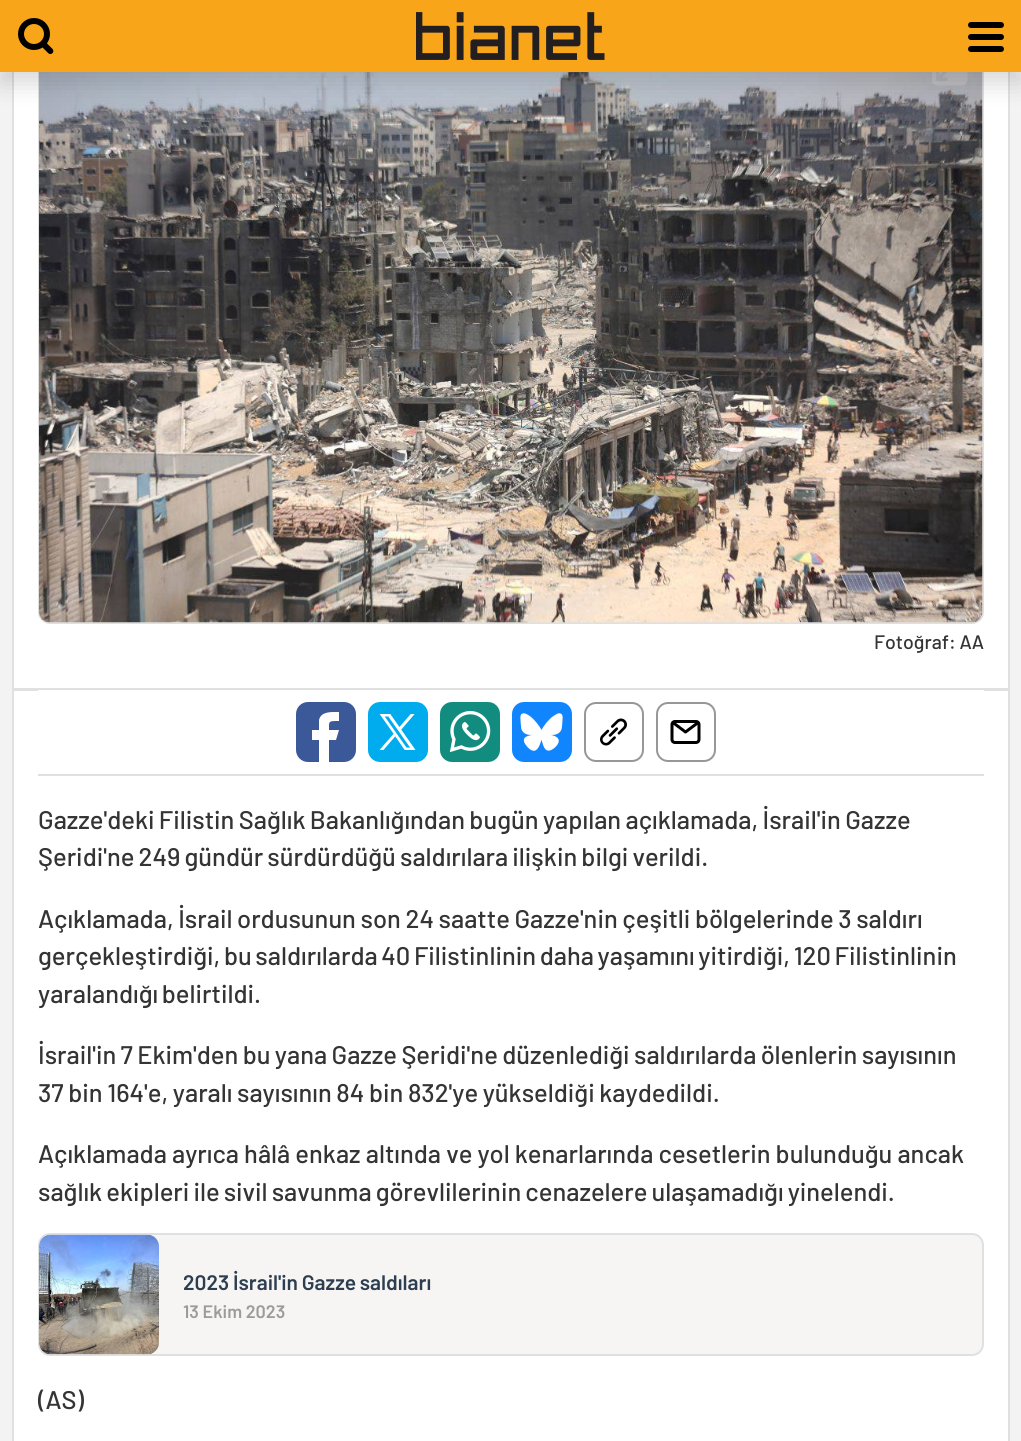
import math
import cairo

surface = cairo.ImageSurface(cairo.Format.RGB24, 1021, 1441)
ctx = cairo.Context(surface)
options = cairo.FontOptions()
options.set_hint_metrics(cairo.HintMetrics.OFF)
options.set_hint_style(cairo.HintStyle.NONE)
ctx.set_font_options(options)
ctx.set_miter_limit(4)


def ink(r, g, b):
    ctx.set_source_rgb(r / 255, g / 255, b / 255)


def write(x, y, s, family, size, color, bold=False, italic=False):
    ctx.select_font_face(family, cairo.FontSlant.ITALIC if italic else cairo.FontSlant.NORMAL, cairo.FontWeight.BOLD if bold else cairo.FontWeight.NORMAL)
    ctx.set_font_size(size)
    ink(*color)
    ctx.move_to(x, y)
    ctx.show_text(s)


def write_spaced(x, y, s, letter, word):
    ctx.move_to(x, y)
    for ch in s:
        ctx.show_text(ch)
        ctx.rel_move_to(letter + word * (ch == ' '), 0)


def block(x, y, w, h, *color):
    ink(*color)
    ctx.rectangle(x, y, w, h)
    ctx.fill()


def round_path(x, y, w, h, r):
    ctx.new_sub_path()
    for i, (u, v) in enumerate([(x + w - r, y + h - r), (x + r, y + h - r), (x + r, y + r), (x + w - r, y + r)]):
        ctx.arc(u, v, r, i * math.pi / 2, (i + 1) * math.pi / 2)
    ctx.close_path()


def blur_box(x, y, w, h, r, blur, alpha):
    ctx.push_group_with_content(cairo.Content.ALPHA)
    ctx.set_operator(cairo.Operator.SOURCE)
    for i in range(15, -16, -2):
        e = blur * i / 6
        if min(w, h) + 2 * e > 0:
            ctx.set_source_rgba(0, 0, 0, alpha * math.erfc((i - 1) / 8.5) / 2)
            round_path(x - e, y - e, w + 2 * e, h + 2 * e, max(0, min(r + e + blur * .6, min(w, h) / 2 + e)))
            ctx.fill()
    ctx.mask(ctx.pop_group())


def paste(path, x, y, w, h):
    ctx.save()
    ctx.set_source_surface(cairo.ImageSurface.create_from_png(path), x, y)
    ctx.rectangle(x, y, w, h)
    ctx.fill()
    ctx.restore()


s1 = dict(family="Barlow Medium", size=19.5, color=(52, 52, 52))
s2 = dict(family="Barlow Medium", size=25.5, color=(52, 52, 52))
s3 = dict(family="Barlow SemiBold", size=18, color=(155, 155, 155))

ink(243, 243, 243)
ctx.paint()
block(14, 72, 994, 616, 255, 255, 255)
ctx.rectangle(13, -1, 996, 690)
ink(224, 224, 224)
ctx.stroke()
round_path(39, 34, 944, 589, 11)
ctx.stroke()
paste("pic3.png", 39, 72, 944, 551)
paste("pic4.png", 932, 72, 36, 14)
ink(0, 0, 0)
blur_box(0, 12, 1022, 72, 0, 12, 0.15)
block(0, 0, 1021, 72, 249, 165, 26)
paste("pic1.png", 18, 18, 36, 36)
paste("pic2.png", 416, 12, 189, 48)
ink(0, 0, 0)
round_path(968, 22, 36, 6, 3)
ctx.fill()
round_path(968, 34, 36, 6, 3)
ctx.fill()
round_path(968, 46, 36, 6, 3)
ctx.fill()
write(874, 649, "Fotoğraf: AA", **s1)
ink(255, 255, 255)
ctx.rectangle(13, 690, 996, 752)
ctx.fill_preserve()
ink(224, 224, 224)
ctx.stroke()
block(38, 690, 946, 1, 255, 255, 255)
block(38, 774, 946, 2, 224, 224, 224)
ink(59, 89, 152)
round_path(296, 702, 60, 60, 12)
ctx.fill()
ink(255, 255, 255)
ctx.set_fill_rule(cairo.FillRule.EVEN_ODD)
ctx.new_path()
ctx.move_to(319, 762)
ctx.line_to(319, 740)
ctx.line_to(312, 740)
ctx.line_to(312, 730)
ctx.line_to(319, 730)
ctx.line_to(319, 720)
ctx.curve_to(321, 711, 332, 712, 339, 712)
ctx.line_to(339, 721)
ctx.curve_to(328, 721, 329, 721, 329, 730)
ctx.line_to(339, 730)
ctx.line_to(336, 740)
ctx.line_to(329, 740)
ctx.line_to(329, 762)
ctx.close_path()
ctx.fill()
ink(0, 172, 238)
round_path(368, 702, 60, 60, 12)
ctx.fill()
paste("pic5.png", 379, 714, 37, 36)
ink(18, 140, 126)
round_path(440, 702, 60, 60, 12)
ctx.fill()
paste("pic6.png", 449, 711, 42, 41)
ink(17, 133, 254)
round_path(512, 702, 60, 60, 12)
ctx.fill()
paste("pic7.png", 520, 713, 43, 38)
round_path(585, 703, 58, 58, 11)
ink(151, 151, 151)
ctx.stroke()
paste("pic8.png", 600, 718, 27, 28)
round_path(657, 703, 58, 58, 11)
ctx.stroke()
paste("pic9.png", 670, 720, 31, 24)
ctx.set_font_size(25.5)
ink(52, 52, 52)
write_spaced(38, 829, "Gazze'deki Filistin Sağlık Bakanlığından bugün yapılan açıklamada, İsrail'in Gazze", 0, -0.75)
write_spaced(38, 866, "Şeridi'ne 249 gündür sürdürdüğü saldırılara ilişkin bilgi verildi.", 0, -1)
write_spaced(38, 928, "Açıklamada, İsrail ordusunun son 24 saatte Gazze'nin çeşitli bölgelerinde 3 saldırı", 0, -0.5)
write_spaced(38, 965, "gerçekleştirdiği, bu saldırılarda 40 Filistinlinin daha yaşamını yitirdiği, 120 Filistinlinin", 0, -1.5)
write_spaced(38, 1003, "yaralandığı belirtildi.", 0, -1.5)
write_spaced(38, 1064, "İsrail'in 7 Ekim'den bu yana Gazze Şeridi'ne düzenlediği saldırılarda ölenlerin sayısının", 0, -0.75)
write_spaced(38, 1102, "37 bin 164'e, yaralı sayısının 84 bin 832'ye yükseldiği kaydedildi.", 0, -0.5)
write(38, 1163, "Açıklamada ayrıca hâlâ enkaz altında ve yol kenarlarında cesetlerin bulunduğu ancak", **s2)
write_spaced(38, 1201, "sağlık ekipleri ile sivil savunma görevlilerinin cenazelere ulaşamadığı yinelendi.", 0, -1)
ink(247, 245, 243)
round_path(39, 1234, 944, 121, 11)
ctx.fill_preserve()
ink(224, 224, 224)
ctx.stroke()
paste("pic10.png", 39, 1234, 120, 121)
ctx.select_font_face("Barlow SemiBold")
ctx.set_font_size(21)
ink(44, 62, 80)
write_spaced(183, 1290, "2023 İsrail'in Gazze saldıları", 0, -0.5)
write(183, 1318, "13 Ekim 2023", **s3)
ctx.save()
ctx.set_fill_rule(cairo.FillRule.WINDING)
ctx.new_path()
ctx.move_to(38, 776)
ctx.line_to(984, 776)
ctx.line_to(984, 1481)
ctx.curve_to(984, 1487.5, 978.5, 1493, 972, 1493)
ctx.line_to(50, 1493)
ctx.curve_to(43.5, 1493, 38, 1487.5, 38, 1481)
ctx.close_path()
ctx.clip()
write(38, 1409, "(AS)", **s2)
ctx.restore()
surface.write_to_png("screenshot.png")
